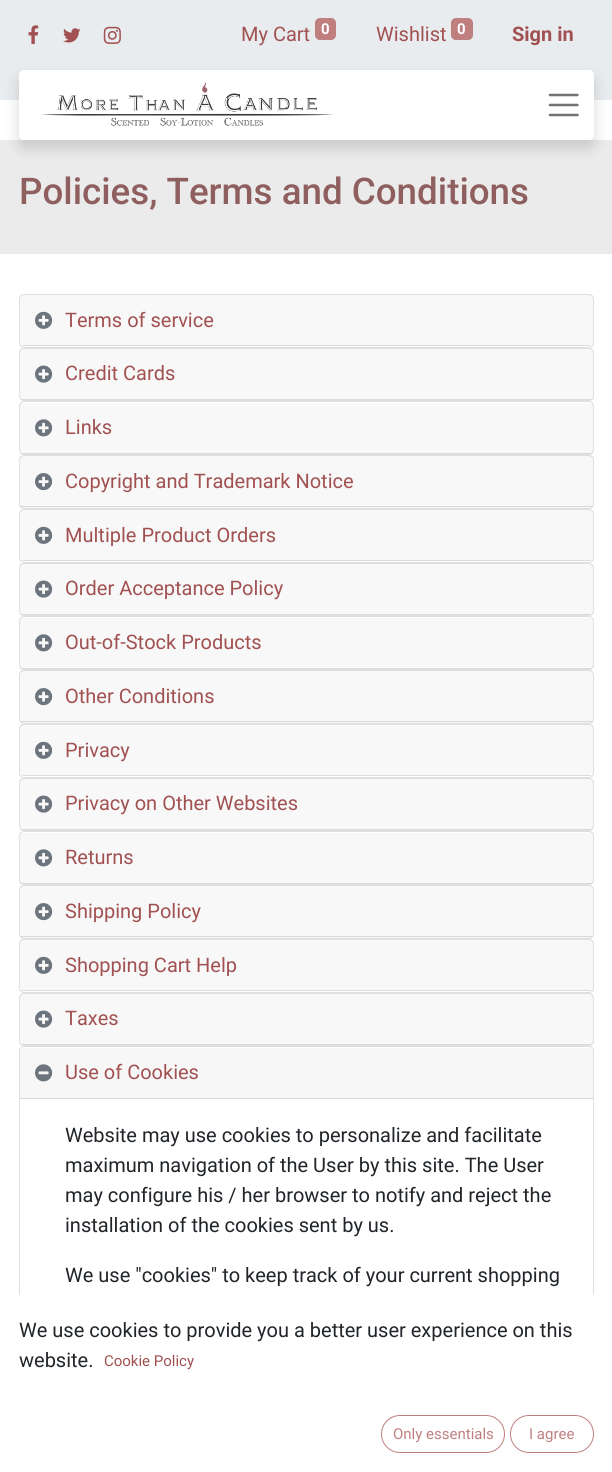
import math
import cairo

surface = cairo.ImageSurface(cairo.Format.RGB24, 612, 1472)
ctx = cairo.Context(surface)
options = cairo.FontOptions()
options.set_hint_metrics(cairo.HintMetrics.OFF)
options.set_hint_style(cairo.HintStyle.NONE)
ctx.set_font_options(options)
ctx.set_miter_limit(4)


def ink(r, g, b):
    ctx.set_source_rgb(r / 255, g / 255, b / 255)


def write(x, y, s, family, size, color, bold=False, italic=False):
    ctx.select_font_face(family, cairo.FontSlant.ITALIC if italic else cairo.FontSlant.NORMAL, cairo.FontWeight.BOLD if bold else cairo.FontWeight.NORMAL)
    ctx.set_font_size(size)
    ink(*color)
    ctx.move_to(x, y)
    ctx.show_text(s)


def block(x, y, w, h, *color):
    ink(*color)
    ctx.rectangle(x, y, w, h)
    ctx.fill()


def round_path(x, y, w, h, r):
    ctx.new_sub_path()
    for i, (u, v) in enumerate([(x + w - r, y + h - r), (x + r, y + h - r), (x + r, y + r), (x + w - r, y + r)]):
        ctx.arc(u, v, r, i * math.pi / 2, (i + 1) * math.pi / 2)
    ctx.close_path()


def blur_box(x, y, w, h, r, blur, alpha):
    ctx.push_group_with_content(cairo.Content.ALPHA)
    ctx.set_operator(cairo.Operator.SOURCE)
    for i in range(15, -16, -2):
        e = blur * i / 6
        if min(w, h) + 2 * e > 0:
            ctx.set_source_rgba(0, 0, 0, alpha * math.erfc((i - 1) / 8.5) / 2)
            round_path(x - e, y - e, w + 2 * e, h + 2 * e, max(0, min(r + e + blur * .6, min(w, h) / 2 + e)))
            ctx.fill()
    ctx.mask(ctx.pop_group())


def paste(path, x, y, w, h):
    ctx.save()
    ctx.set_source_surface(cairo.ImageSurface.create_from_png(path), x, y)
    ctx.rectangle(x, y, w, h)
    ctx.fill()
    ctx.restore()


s1 = dict(family="Roboto", size=20, color=(161, 81, 81))
s2 = dict(family="Roboto", size=15, color=(255, 255, 255), bold=True)
s3 = dict(family="Roboto", size=20, color=(161, 81, 81), bold=True)
s4 = dict(family="Roboto Medium", size=36.75, color=(143, 95, 95))
s5 = dict(family="Roboto", size=20, color=(33, 37, 41))
s6 = dict(family="Roboto", size=15, color=(161, 81, 81))
s7 = dict(family="Roboto", size=15, color=(191, 127, 127))

ink(255, 255, 255)
ctx.paint()
block(0, 0, 612, 100, 233, 236, 239)
paste("pic1.png", 28, 25, 11, 19)
paste("pic2.png", 63, 28, 18, 15)
paste("pic3.png", 103, 26, 18, 18)
write(241, 41, "My Cart", **s1)
ink(191, 127, 127)
round_path(315, 18, 21, 22, 5)
ctx.fill()
write(321, 34, "0", **s2)
write(376, 41, "Wishlist", **s1)
ink(191, 127, 127)
round_path(451, 18, 22, 22, 5)
ctx.fill()
write(457, 34, "0", **s2)
write(512, 41, "Sign in", **s3)
block(0, 140, 612, 114, 235, 235, 235)
ink(0, 0, 0)
blur_box(19, 78, 575, 70, 5, 7.5, 0.15)
ink(255, 255, 255)
round_path(19, 70, 575, 70, 5)
ctx.fill()
paste("pic4.png", 41, 82, 292, 44)
ctx.new_path()
ctx.move_to(550, 95)
ctx.line_to(577.5, 95)
ctx.move_to(550, 105)
ctx.line_to(577.5, 105)
ctx.move_to(550, 115)
ctx.line_to(577.5, 115)
ink(115, 115, 115)
ctx.set_line_width(2.5)
ctx.set_line_cap(cairo.LineCap.ROUND)
ctx.stroke()
write(19, 204, "Policies, Terms and Conditions", **s4)
round_path(19.5, 294.5, 574, 53, 4.5)
ink(223, 223, 223)
ctx.set_line_width(1)
ctx.set_line_cap(cairo.LineCap.BUTT)
ctx.stroke()
ctx.set_source_rgba(0, 0, 0, 0.03)
ctx.rectangle(20, 295, 573, 51)
ctx.fill()
ctx.save()
round_path(20, 295, 573, 51, 4)
ctx.clip()
ctx.set_source_rgba(0, 0, 0, 0.12)
ctx.rectangle(20, 345, 573, 1)
ctx.fill()
ctx.restore()
paste("pic5.png", 35, 311, 18, 18)
write(65, 327, "Terms of service", **s1)
round_path(19.5, 348.5, 574, 52, 4.5)
ink(223, 223, 223)
ctx.stroke()
ctx.set_source_rgba(0, 0, 0, 0.03)
ctx.rectangle(20, 349, 573, 51)
ctx.fill()
ctx.save()
round_path(20, 349, 573, 51, 4)
ctx.clip()
ctx.set_source_rgba(0, 0, 0, 0.12)
ctx.rectangle(20, 399, 573, 1)
ctx.fill()
ctx.restore()
paste("pic6.png", 35, 365, 18, 18)
write(65, 380, "Credit Cards", **s1)
round_path(19.5, 401.5, 574, 53, 4.5)
ink(223, 223, 223)
ctx.stroke()
ctx.set_source_rgba(0, 0, 0, 0.03)
ctx.rectangle(20, 403, 573, 51)
ctx.fill()
ctx.save()
round_path(20, 403, 573, 51, 4)
ctx.clip()
ctx.set_source_rgba(0, 0, 0, 0.12)
ctx.rectangle(20, 453, 573, 1)
ctx.fill()
ctx.restore()
paste("pic7.png", 35, 419, 18, 18)
write(65, 434, "Links", **s1)
round_path(19.5, 455.5, 574, 53, 4.5)
ink(223, 223, 223)
ctx.stroke()
ctx.set_source_rgba(0, 0, 0, 0.03)
ctx.rectangle(20, 456, 573, 52)
ctx.fill()
ctx.save()
round_path(20, 456, 573, 52, 4)
ctx.clip()
block(20, 506, 573, 1, 216, 216, 216)
ctx.restore()
paste("pic8.png", 35, 473, 18, 18)
write(65, 488, "Copyright and Trademark Notice", **s1)
round_path(19.5, 509.5, 574, 53, 4.5)
ink(223, 223, 223)
ctx.stroke()
ctx.set_source_rgba(0, 0, 0, 0.03)
ctx.rectangle(20, 510, 573, 51)
ctx.fill()
ctx.save()
round_path(20, 510, 573, 51, 4)
ctx.clip()
ctx.set_source_rgba(0, 0, 0, 0.12)
ctx.rectangle(20, 560, 573, 1)
ctx.fill()
ctx.restore()
paste("pic5.png", 35, 526, 18, 18)
write(65, 542, "Multiple Product Orders", **s1)
round_path(19.5, 563.5, 574, 52, 4.5)
ink(223, 223, 223)
ctx.stroke()
ctx.set_source_rgba(0, 0, 0, 0.03)
ctx.rectangle(20, 564, 573, 51)
ctx.fill()
ctx.save()
round_path(20, 564, 573, 51, 4)
ctx.clip()
ctx.set_source_rgba(0, 0, 0, 0.12)
ctx.rectangle(20, 614, 573, 1)
ctx.fill()
ctx.restore()
paste("pic6.png", 35, 580, 18, 18)
write(65, 595, "Order Acceptance Policy", **s1)
round_path(19.5, 616.5, 574, 53, 4.5)
ink(223, 223, 223)
ctx.stroke()
ctx.set_source_rgba(0, 0, 0, 0.03)
ctx.rectangle(20, 618, 573, 51)
ctx.fill()
ctx.save()
round_path(20, 618, 573, 51, 4)
ctx.clip()
ctx.set_source_rgba(0, 0, 0, 0.12)
ctx.rectangle(20, 668, 573, 1)
ctx.fill()
ctx.restore()
paste("pic7.png", 35, 634, 18, 18)
write(65, 649, "Out-of-Stock Products", **s1)
round_path(19.5, 670.5, 574, 53, 4.5)
ink(223, 223, 223)
ctx.stroke()
ctx.set_source_rgba(0, 0, 0, 0.03)
ctx.rectangle(20, 671, 573, 52)
ctx.fill()
ctx.save()
round_path(20, 671, 573, 52, 4)
ctx.clip()
block(20, 721, 573, 1, 216, 216, 216)
ctx.restore()
paste("pic8.png", 35, 688, 18, 18)
write(65, 703, "Other Conditions", **s1)
round_path(19.5, 724.5, 574, 53, 4.5)
ink(223, 223, 223)
ctx.stroke()
ctx.set_source_rgba(0, 0, 0, 0.03)
ctx.rectangle(20, 725, 573, 51)
ctx.fill()
ctx.save()
round_path(20, 725, 573, 51, 4)
ctx.clip()
ctx.set_source_rgba(0, 0, 0, 0.12)
ctx.rectangle(20, 775, 573, 1)
ctx.fill()
ctx.restore()
paste("pic5.png", 35, 741, 18, 18)
write(65, 757, "Privacy", **s1)
round_path(19.5, 778.5, 574, 52, 4.5)
ink(223, 223, 223)
ctx.stroke()
ctx.set_source_rgba(0, 0, 0, 0.03)
ctx.rectangle(20, 779, 573, 51)
ctx.fill()
ctx.save()
round_path(20, 779, 573, 51, 4)
ctx.clip()
ctx.set_source_rgba(0, 0, 0, 0.12)
ctx.rectangle(20, 829, 573, 1)
ctx.fill()
ctx.restore()
paste("pic6.png", 35, 795, 18, 18)
write(65, 810, "Privacy on Other Websites", **s1)
round_path(19.5, 831.5, 574, 53, 4.5)
ink(223, 223, 223)
ctx.stroke()
ctx.set_source_rgba(0, 0, 0, 0.03)
ctx.rectangle(20, 833, 573, 51)
ctx.fill()
ctx.save()
round_path(20, 833, 573, 51, 4)
ctx.clip()
ctx.set_source_rgba(0, 0, 0, 0.12)
ctx.rectangle(20, 883, 573, 1)
ctx.fill()
ctx.restore()
paste("pic7.png", 35, 849, 18, 18)
write(65, 864, "Returns", **s1)
round_path(19.5, 885.5, 574, 53, 4.5)
ink(223, 223, 223)
ctx.stroke()
ctx.set_source_rgba(0, 0, 0, 0.03)
ctx.rectangle(20, 886, 573, 52)
ctx.fill()
ctx.save()
round_path(20, 886, 573, 52, 4)
ctx.clip()
block(20, 936, 573, 1, 216, 216, 216)
ctx.restore()
paste("pic8.png", 35, 903, 18, 18)
write(65, 918, "Shipping Policy", **s1)
round_path(19.5, 939.5, 574, 53, 4.5)
ink(223, 223, 223)
ctx.stroke()
ctx.set_source_rgba(0, 0, 0, 0.03)
ctx.rectangle(20, 940, 573, 51)
ctx.fill()
ctx.save()
round_path(20, 940, 573, 51, 4)
ctx.clip()
ctx.set_source_rgba(0, 0, 0, 0.12)
ctx.rectangle(20, 990, 573, 1)
ctx.fill()
ctx.restore()
paste("pic5.png", 35, 956, 18, 18)
write(65, 972, "Shopping Cart Help", **s1)
round_path(19.5, 993.5, 574, 52, 4.5)
ink(223, 223, 223)
ctx.stroke()
ctx.set_source_rgba(0, 0, 0, 0.03)
ctx.rectangle(20, 994, 573, 51)
ctx.fill()
ctx.save()
round_path(20, 994, 573, 51, 4)
ctx.clip()
ctx.set_source_rgba(0, 0, 0, 0.12)
ctx.rectangle(20, 1044, 573, 1)
ctx.fill()
ctx.restore()
paste("pic6.png", 35, 1010, 18, 18)
write(65, 1025, "Taxes", **s1)
round_path(19.5, 1046.5, 574, 374, 4.5)
ink(223, 223, 223)
ctx.stroke()
ink(247, 247, 247)
ctx.new_path()
ctx.move_to(24, 1048)
ctx.line_to(589, 1048)
ctx.curve_to(591, 1048, 593, 1050, 593, 1052)
ctx.line_to(593, 1099)
ctx.line_to(20, 1099)
ctx.line_to(20, 1052)
ctx.curve_to(20, 1050, 22, 1048, 24, 1048)
ctx.close_path()
ctx.fill()
block(20, 1098, 573, 1, 216, 216, 216)
paste("pic9.png", 35, 1064, 18, 18)
write(65, 1079, "Use of Cookies", **s1)
ctx.set_source_rgba(1, 1, 1, 0.9)
round_path(20, 1100, 573, 320, 4)
ctx.fill()
write(65, 1142, "Website may use cookies to personalize and facilitate", **s5)
write(65, 1172, "maximum navigation of the User by this site. The User", **s5)
write(65, 1202, "may configure his / her browser to notify and reject the", **s5)
write(65, 1232, "installation of the cookies sent by us.", **s5)
write(65, 1282, "We use \"cookies\" to keep track of your current shopping", **s5)
block(19, 1295, 575, 126, 255, 255, 255)
write(19, 1337, "We use cookies to provide you a better user experience on this", **s5)
write(19, 1367, "website.", **s5)
write(104, 1366, "Cookie Policy", **s6)
round_path(381.5, 1415.5, 123, 37, 18.5)
ink(191, 127, 127)
ctx.stroke()
write(393, 1439, "Only essentials", **s7)
round_path(510.5, 1415.5, 83, 37, 18.5)
ctx.stroke()
write(529, 1439, "I agree", **s7)
surface.write_to_png("screenshot.png")
